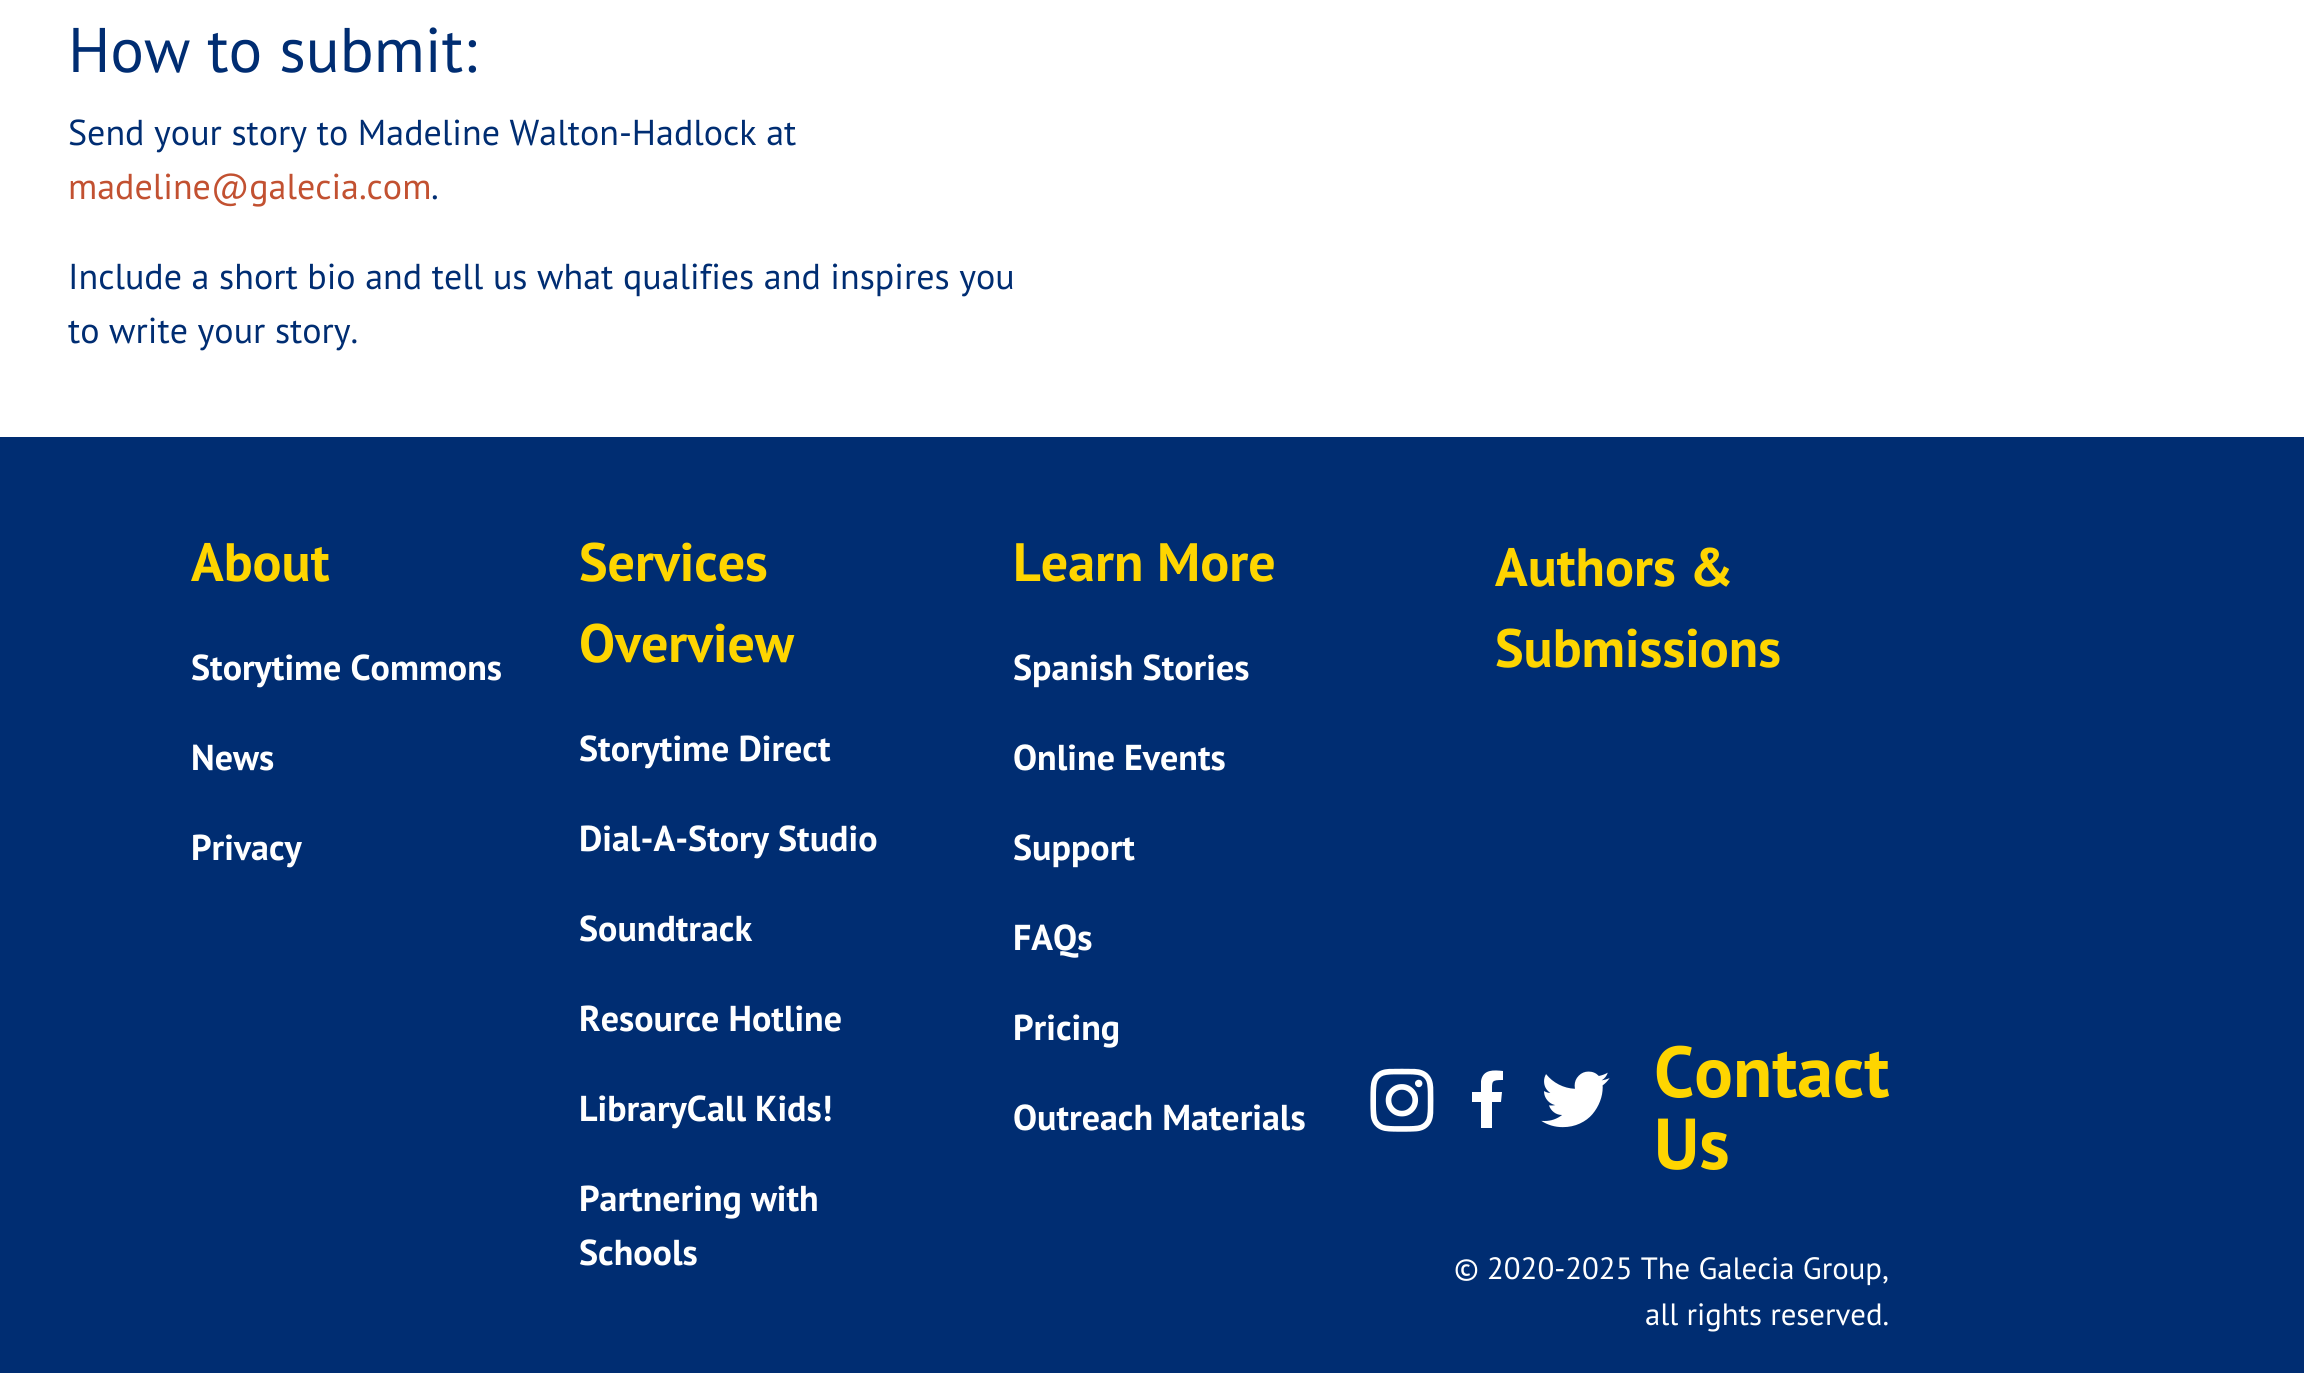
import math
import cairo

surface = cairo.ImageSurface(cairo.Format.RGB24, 2304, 1373)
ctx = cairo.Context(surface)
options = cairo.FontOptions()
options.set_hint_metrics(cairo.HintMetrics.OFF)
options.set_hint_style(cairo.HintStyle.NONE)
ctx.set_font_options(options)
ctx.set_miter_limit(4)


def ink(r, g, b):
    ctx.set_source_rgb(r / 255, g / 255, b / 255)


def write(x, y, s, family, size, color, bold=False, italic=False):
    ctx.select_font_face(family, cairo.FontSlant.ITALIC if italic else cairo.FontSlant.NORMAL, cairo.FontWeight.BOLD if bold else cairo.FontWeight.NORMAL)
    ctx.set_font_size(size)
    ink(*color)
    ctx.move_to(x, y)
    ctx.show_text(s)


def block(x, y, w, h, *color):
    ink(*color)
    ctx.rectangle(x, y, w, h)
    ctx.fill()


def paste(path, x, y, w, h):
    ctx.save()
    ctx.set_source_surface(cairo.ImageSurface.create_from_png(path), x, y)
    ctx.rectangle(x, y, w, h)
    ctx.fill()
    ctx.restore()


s1 = dict(family="PT Sans", size=63, color=(0, 45, 114))
s2 = dict(family="PT Sans", size=36, color=(0, 45, 114))
s3 = dict(family="PT Sans", size=36, color=(194, 81, 49))
s4 = dict(family="PT Sans", size=54, color=(254, 213, 0), bold=True)
s5 = dict(family="PT Sans", size=36, color=(255, 255, 255), bold=True)
s6 = dict(family="PT Sans", size=72, color=(254, 213, 0), bold=True)
s7 = dict(family="PT Sans", size=30.8, color=(255, 255, 255))

ink(255, 255, 255)
ctx.paint()
write(68, 72, "How to submit:", **s1)
write(68, 145, "Send your story to Madeline Walton-Hadlock at", **s2)
write(68, 199, "madeline@galecia.com", **s3)
write(431, 199, ".", **s2)
write(68, 289, "Include a short bio and tell us what qualifies and inspires you", **s2)
write(68, 343, "to write your story.", **s2)
block(0, 437, 2304, 936, 0, 45, 114)
write(191, 581, "About", **s4)
write(191, 680, "Storytime Commons", **s5)
write(191, 770, "News", **s5)
write(191, 860, "Privacy", **s5)
write(579, 581, "Services", **s4)
write(579, 662, "Overview", **s4)
write(579, 761, "Storytime Direct", **s5)
write(579, 851, "Dial-A-Story Studio", **s5)
write(579, 941, "Soundtrack", **s5)
write(579, 1031, "Resource Hotline", **s5)
write(579, 1121, "LibraryCall Kids!", **s5)
write(579, 1211, "Partnering with", **s5)
write(579, 1265, "Schools", **s5)
write(1013, 581, "Learn More", **s4)
write(1013, 680, "Spanish Stories", **s5)
write(1013, 770, "Online Events", **s5)
write(1013, 860, "Support", **s5)
write(1013, 950, "FAQs", **s5)
write(1013, 1040, "Pricing", **s5)
write(1013, 1130, "Outreach Materials", **s5)
write(1495, 586, "Authors &", **s4)
write(1495, 667, "Submissions", **s4)
paste("pic1.png", 1370, 1068, 64, 64)
ink(255, 255, 255)
ctx.new_path()
ctx.move_to(1501, 1102)
ctx.line_to(1492, 1102)
ctx.line_to(1492, 1128)
ctx.line_to(1481, 1128)
ctx.line_to(1481, 1102)
ctx.line_to(1472, 1102)
ctx.line_to(1472, 1092)
ctx.line_to(1481, 1092)
ctx.line_to(1481, 1081)
ctx.curve_to(1483, 1069, 1494, 1070, 1503, 1071)
ctx.line_to(1503, 1080)
ctx.curve_to(1491, 1080, 1492, 1081, 1492, 1092)
ctx.line_to(1502, 1092)
ctx.close_path()
ctx.fill()
paste("pic2.png", 1541, 1071, 69, 57)
write(1654, 1097, "Contact", **s6)
write(1654, 1169, "Us", **s6)
write(1454, 1279, "© 2020-2025 The Galecia Group,", **s7)
write(1645, 1325, "all rights reserved.", **s7)
surface.write_to_png("screenshot.png")
